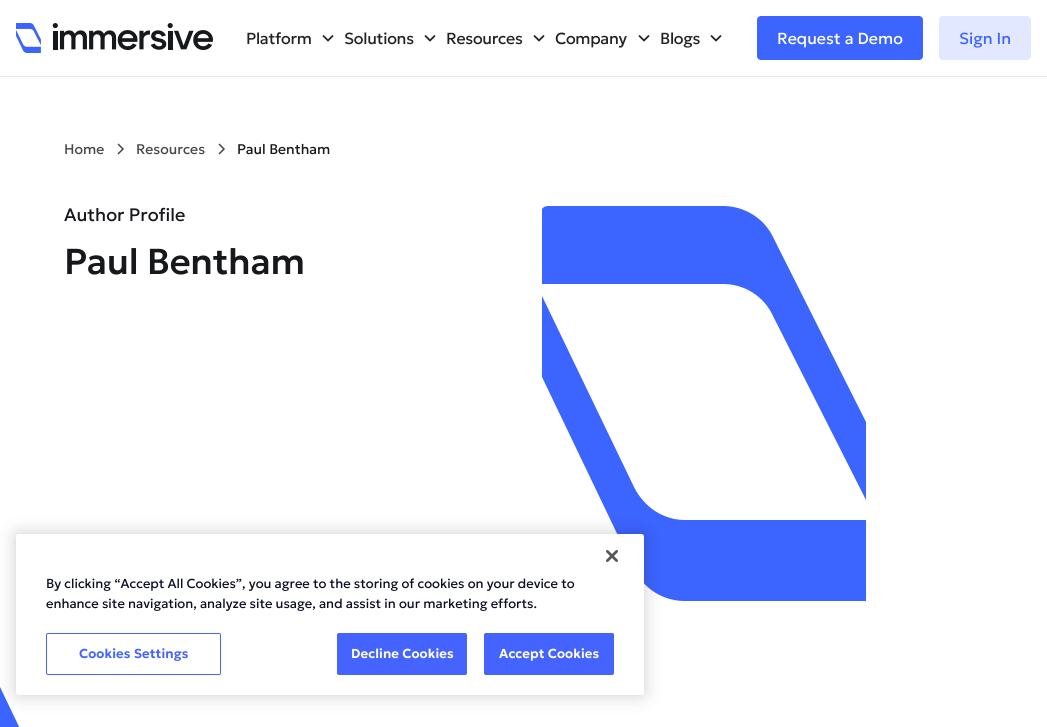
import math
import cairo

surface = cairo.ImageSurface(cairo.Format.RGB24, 1047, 727)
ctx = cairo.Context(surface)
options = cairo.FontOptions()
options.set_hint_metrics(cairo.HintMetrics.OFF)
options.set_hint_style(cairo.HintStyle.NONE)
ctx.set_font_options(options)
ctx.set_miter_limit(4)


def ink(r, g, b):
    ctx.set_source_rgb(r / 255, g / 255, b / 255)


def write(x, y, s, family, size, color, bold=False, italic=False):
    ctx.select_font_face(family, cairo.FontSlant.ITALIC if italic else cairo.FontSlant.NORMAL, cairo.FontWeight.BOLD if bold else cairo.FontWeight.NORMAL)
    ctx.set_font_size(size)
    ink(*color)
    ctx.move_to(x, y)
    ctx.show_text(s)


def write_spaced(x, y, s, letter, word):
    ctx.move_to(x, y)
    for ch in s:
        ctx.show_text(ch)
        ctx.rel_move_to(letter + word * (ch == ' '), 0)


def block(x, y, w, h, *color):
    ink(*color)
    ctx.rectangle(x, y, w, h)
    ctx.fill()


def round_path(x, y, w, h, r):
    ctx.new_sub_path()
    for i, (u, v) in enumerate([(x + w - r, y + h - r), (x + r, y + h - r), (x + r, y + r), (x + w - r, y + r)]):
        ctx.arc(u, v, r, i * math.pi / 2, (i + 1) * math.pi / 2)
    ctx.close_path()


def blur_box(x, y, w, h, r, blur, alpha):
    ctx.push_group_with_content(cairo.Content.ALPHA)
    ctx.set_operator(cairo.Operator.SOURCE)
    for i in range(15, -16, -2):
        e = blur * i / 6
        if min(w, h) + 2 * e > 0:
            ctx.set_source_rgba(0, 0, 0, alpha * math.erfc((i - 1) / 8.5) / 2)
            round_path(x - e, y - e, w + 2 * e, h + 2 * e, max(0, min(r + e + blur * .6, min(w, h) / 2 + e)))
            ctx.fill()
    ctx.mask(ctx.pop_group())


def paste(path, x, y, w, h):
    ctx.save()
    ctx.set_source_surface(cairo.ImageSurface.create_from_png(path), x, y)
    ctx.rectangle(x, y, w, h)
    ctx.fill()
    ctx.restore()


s1 = dict(family="Geologica", size=16, color=(255, 255, 255))
s2 = dict(family="Geologica", size=16, color=(60, 100, 255))
s3 = dict(family="Geologica", size=14, color=(69, 70, 73))
s4 = dict(family="Geologica", size=14, color=(23, 24, 28))
s5 = dict(family="Geologica", size=18, color=(23, 24, 28))
s6 = dict(family="Geologica", size=13, color=(13, 15, 37))

ink(255, 255, 255)
ctx.paint()
block(0, 76, 1047, 1, 231, 231, 241)
paste("pic1.png", 16, 23, 197, 30)
ctx.select_font_face("Geologica")
ctx.set_font_size(16)
ink(34, 34, 34)
write_spaced(246, 44, "Platform", -0.25, 0)
paste("pic2.png", 322, 35, 12, 7)
write_spaced(344, 44, "Solutions", -0.25, 0)
paste("pic2.png", 424, 35, 12, 7)
write_spaced(446, 44, "Resources", -0.25, 0)
paste("pic2.png", 533, 35, 12, 7)
write_spaced(555, 44, "Company", -0.25, 0)
paste("pic2.png", 638, 35, 12, 7)
write_spaced(660, 44, "Blogs", -0.25, 0)
paste("pic2.png", 710, 35, 12, 7)
ink(60, 100, 255)
round_path(757, 16, 166, 44, 4)
ctx.fill()
write(777, 44, "Request a Demo", **s1)
ink(226, 232, 255)
round_path(939, 16, 92, 44, 4)
ctx.fill()
write(959, 44, "Sign In", **s2)
write(64, 154, "Home", **s3)
ctx.new_path()
ctx.move_to(118, 144)
ctx.line_to(123, 149)
ctx.line_to(118, 154)
ctx.set_line_width(1.5)
ctx.stroke()
write(136, 154, "Resources", **s3)
ctx.new_path()
ctx.move_to(219, 144)
ctx.line_to(224, 149)
ctx.line_to(219, 154)
ctx.stroke()
write(237, 154, "Paul Bentham", **s4)
write(64, 221, "Author Profile", **s5)
ctx.select_font_face("Geologica Medium")
ctx.set_font_size(36)
write_spaced(64, 274, "Paul Bentham", -0.25, 0)
ink(60, 100, 255)
ctx.new_path()
ctx.move_to(773, 316)
ctx.line_to(866, 500)
ctx.line_to(866, 422)
ctx.line_to(773, 237)
ctx.curve_to(764, 218, 744, 206, 723, 206)
ctx.line_to(548, 206)
ctx.curve_to(546, 206, 543, 207, 542, 209)
ctx.line_to(542, 284)
ctx.line_to(723, 284)
ctx.curve_to(744, 284, 764, 296, 773, 316)
ctx.close_path()
ctx.fill()
ctx.new_path()
ctx.move_to(634, 487)
ctx.line_to(542, 296)
ctx.line_to(542, 377)
ctx.line_to(634, 569)
ctx.curve_to(644, 589, 663, 601, 685, 601)
ctx.line_to(866, 601)
ctx.line_to(866, 520)
ctx.line_to(685, 520)
ctx.curve_to(663, 520, 644, 507, 634, 487)
ctx.close_path()
ctx.fill()
ctx.new_path()
ctx.move_to(604, 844)
ctx.line_to(0, 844)
ctx.line_to(0, 687)
ctx.line_to(46, 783)
ctx.curve_to(51, 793, 61, 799, 71, 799)
ctx.line_to(604, 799)
ctx.close_path()
ctx.fill()
ink(0, 0, 0)
blur_box(16, 534, 628, 161, 2.5, 9, 0.2)
ink(255, 255, 255)
round_path(16, 534, 628, 161, 2.5)
ctx.fill()
paste("pic3.png", 606, 550, 12, 12)
write(46, 588, "By clicking “Accept All Cookies”, you agree to the storing of cookies on your device to", **s6)
write(46, 608, "enhance site navigation, analyze site usage, and assist in our marketing efforts.", **s6)
round_path(46.5, 633.5, 174, 41, 1.5)
ink(69, 99, 255)
ctx.set_line_width(1)
ctx.stroke()
ctx.select_font_face("Geologica SemiBold")
write_spaced(79, 658, "Cookies Settings", 0.1, 0)
round_path(337.5, 633.5, 129, 41, 1.5)
ctx.fill_preserve()
ctx.stroke()
ink(255, 255, 255)
write_spaced(351, 658, "Decline Cookies", 0.1, 0)
ink(69, 99, 255)
round_path(484.5, 633.5, 129, 41, 1.5)
ctx.fill_preserve()
ctx.stroke()
ink(255, 255, 255)
write_spaced(499, 658, "Accept Cookies", 0.1, 0)
surface.write_to_png("screenshot.png")
